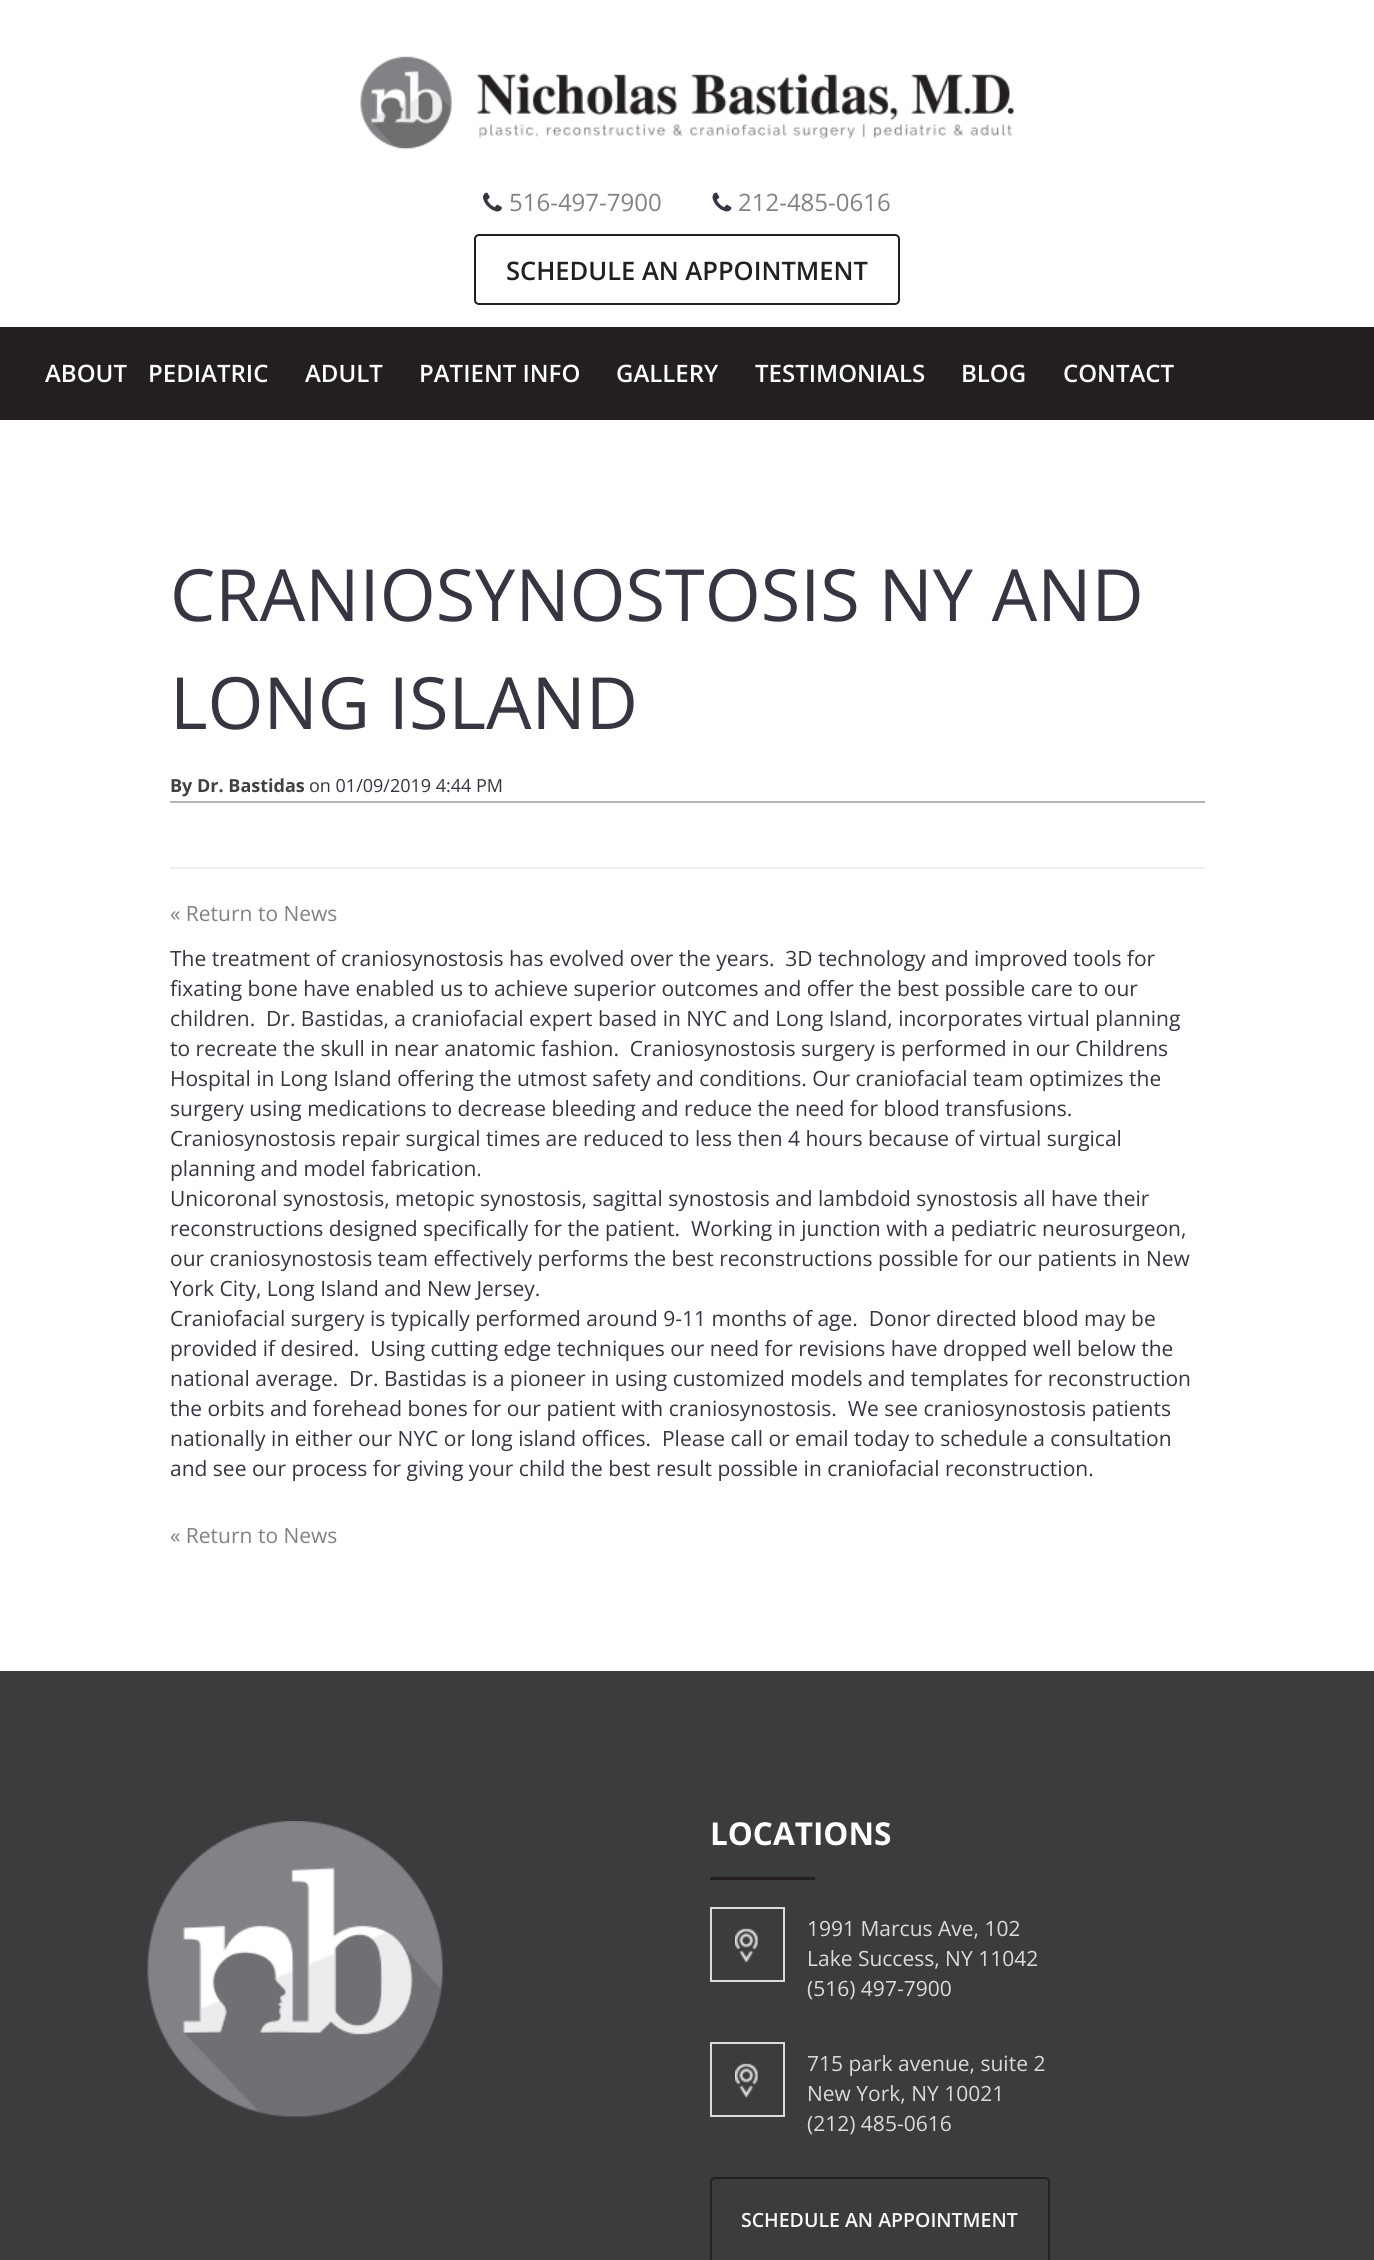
import math
import cairo

surface = cairo.ImageSurface(cairo.Format.RGB24, 1374, 2260)
ctx = cairo.Context(surface)
options = cairo.FontOptions()
options.set_hint_metrics(cairo.HintMetrics.OFF)
options.set_hint_style(cairo.HintStyle.NONE)
ctx.set_font_options(options)
ctx.set_miter_limit(4)


def ink(r, g, b):
    ctx.set_source_rgb(r / 255, g / 255, b / 255)


def write(x, y, s, family, size, color, bold=False, italic=False):
    ctx.select_font_face(family, cairo.FontSlant.ITALIC if italic else cairo.FontSlant.NORMAL, cairo.FontWeight.BOLD if bold else cairo.FontWeight.NORMAL)
    ctx.set_font_size(size)
    ink(*color)
    ctx.move_to(x, y)
    ctx.show_text(s)


def block(x, y, w, h, *color):
    ink(*color)
    ctx.rectangle(x, y, w, h)
    ctx.fill()


def round_path(x, y, w, h, r):
    ctx.new_sub_path()
    for i, (u, v) in enumerate([(x + w - r, y + h - r), (x + r, y + h - r), (x + r, y + r), (x + w - r, y + r)]):
        ctx.arc(u, v, r, i * math.pi / 2, (i + 1) * math.pi / 2)
    ctx.close_path()


def paste(path, x, y, w, h):
    ctx.save()
    ctx.set_source_surface(cairo.ImageSurface.create_from_png(path), x, y)
    ctx.rectangle(x, y, w, h)
    ctx.fill()
    ctx.restore()


s1 = dict(family="Open Sans", size=24, color=(129, 130, 133))
s2 = dict(family="Open Sans SemiBold", size=25.5, color=(35, 31, 32))
s3 = dict(family="Open Sans SemiBold", size=24, color=(255, 255, 255))
s4 = dict(family="Open Sans", size=72, color=(55, 53, 66))
s5 = dict(family="Open Sans", size=18, color=(65, 65, 65), bold=True)
s6 = dict(family="Open Sans", size=18, color=(55, 53, 66))
s7 = dict(family="Open Sans", size=21, color=(129, 130, 133))
s8 = dict(family="Open Sans", size=21, color=(55, 53, 66))
s9 = dict(family="Open Sans", size=31.5, color=(255, 255, 255), bold=True)
s10 = dict(family="Open Sans", size=21, color=(219, 219, 219))
s11 = dict(family="Open Sans SemiBold", size=19.5, color=(247, 248, 249))

ink(255, 255, 255)
ctx.paint()
paste("pic1.png", 360, 56, 654, 93)
paste("pic2.png", 483, 192, 19, 20)
write(509, 211, "516-497-7900", **s1)
paste("pic3.png", 712, 192, 20, 20)
write(738, 211, "212-485-0616", **s1)
round_path(475, 235, 424, 69, 4)
ink(35, 31, 32)
ctx.stroke()
write(506, 280, "SCHEDULE AN APPOINTMENT", **s2)
block(0, 327, 1374, 93, 35, 31, 32)
write(45, 382, "ABOUT", **s3)
write(148, 382, "PEDIATRIC", **s3)
write(305, 382, "ADULT", **s3)
write(419, 382, "PATIENT INFO", **s3)
write(616, 382, "GALLERY", **s3)
write(755, 382, "TESTIMONIALS", **s3)
write(961, 382, "BLOG", **s3)
write(1063, 382, "CONTACT", **s3)
write(170, 621, "CRANIOSYNOSTOSIS NY AND", **s4)
write(170, 729, "LONG ISLAND", **s4)
block(170, 801, 1035, 2, 179, 179, 179)
write(170, 792, "By Dr. Bastidas", **s5)
write(309, 792, "on 01/09/2019 4:44 PM", **s6)
block(170, 867, 1035, 2, 238, 238, 238)
write(170, 921, "« Return to News", **s7)
write(170, 966, "The treatment of craniosynostosis has evolved over the years.  3D technology and improved tools for", **s8)
write(170, 996, "fixating bone have enabled us to achieve superior outcomes and offer the best possible care to our", **s8)
write(170, 1026, "children.  Dr. Bastidas, a craniofacial expert based in NYC and Long Island, incorporates virtual planning", **s8)
write(170, 1056, "to recreate the skull in near anatomic fashion.  Craniosynostosis surgery is performed in our Childrens", **s8)
write(170, 1086, "Hospital in Long Island offering the utmost safety and conditions. Our craniofacial team optimizes the", **s8)
write(170, 1116, "surgery using medications to decrease bleeding and reduce the need for blood transfusions.", **s8)
write(170, 1146, "Craniosynostosis repair surgical times are reduced to less then 4 hours because of virtual surgical", **s8)
write(170, 1176, "planning and model fabrication.", **s8)
write(170, 1206, "Unicoronal synostosis, metopic synostosis, sagittal synostosis and lambdoid synostosis all have their", **s8)
write(170, 1236, "reconstructions designed specifically for the patient.  Working in junction with a pediatric neurosurgeon,", **s8)
write(170, 1266, "our craniosynostosis team effectively performs the best reconstructions possible for our patients in New", **s8)
write(170, 1296, "York City, Long Island and New Jersey.", **s8)
write(170, 1326, "Craniofacial surgery is typically performed around 9-11 months of age.  Donor directed blood may be", **s8)
write(170, 1356, "provided if desired.  Using cutting edge techniques our need for revisions have dropped well below the", **s8)
write(170, 1386, "national average.  Dr. Bastidas is a pioneer in using customized models and templates for reconstruction", **s8)
write(170, 1416, "the orbits and forehead bones for our patient with craniosynostosis.  We see craniosynostosis patients", **s8)
write(170, 1446, "nationally in either our NYC or long island offices.  Please call or email today to schedule a consultation", **s8)
write(170, 1476, "and see our process for giving your child the best result possible in craniofacial reconstruction.", **s8)
write(170, 1543, "« Return to News", **s7)
block(0, 1671, 1374, 589, 59, 60, 61)
paste("pic4.png", 147, 1821, 296, 296)
write(710, 1845, "LOCATIONS", **s9)
block(710, 1877, 105, 3, 35, 31, 32)
ctx.rectangle(711, 1908, 73, 73)
ink(219, 219, 219)
ctx.stroke()
paste("pic5.png", 735, 1928, 23, 35)
write(807, 1936, "1991 Marcus Ave, 102", **s10)
write(807, 1966, "Lake Success, NY 11042", **s10)
write(807, 1996, "(516) 497-7900", **s10)
ctx.rectangle(711, 2043, 73, 73)
ctx.stroke()
paste("pic5.png", 735, 2063, 23, 35)
write(807, 2071, "715 park avenue, suite 2", **s10)
write(807, 2101, "New York, NY 10021", **s10)
write(807, 2131, "(212) 485-0616", **s10)
round_path(711, 2178, 338, 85, 4)
ink(35, 31, 32)
ctx.stroke()
write(741, 2227, "SCHEDULE AN APPOINTMENT", **s11)
surface.write_to_png("screenshot.png")
